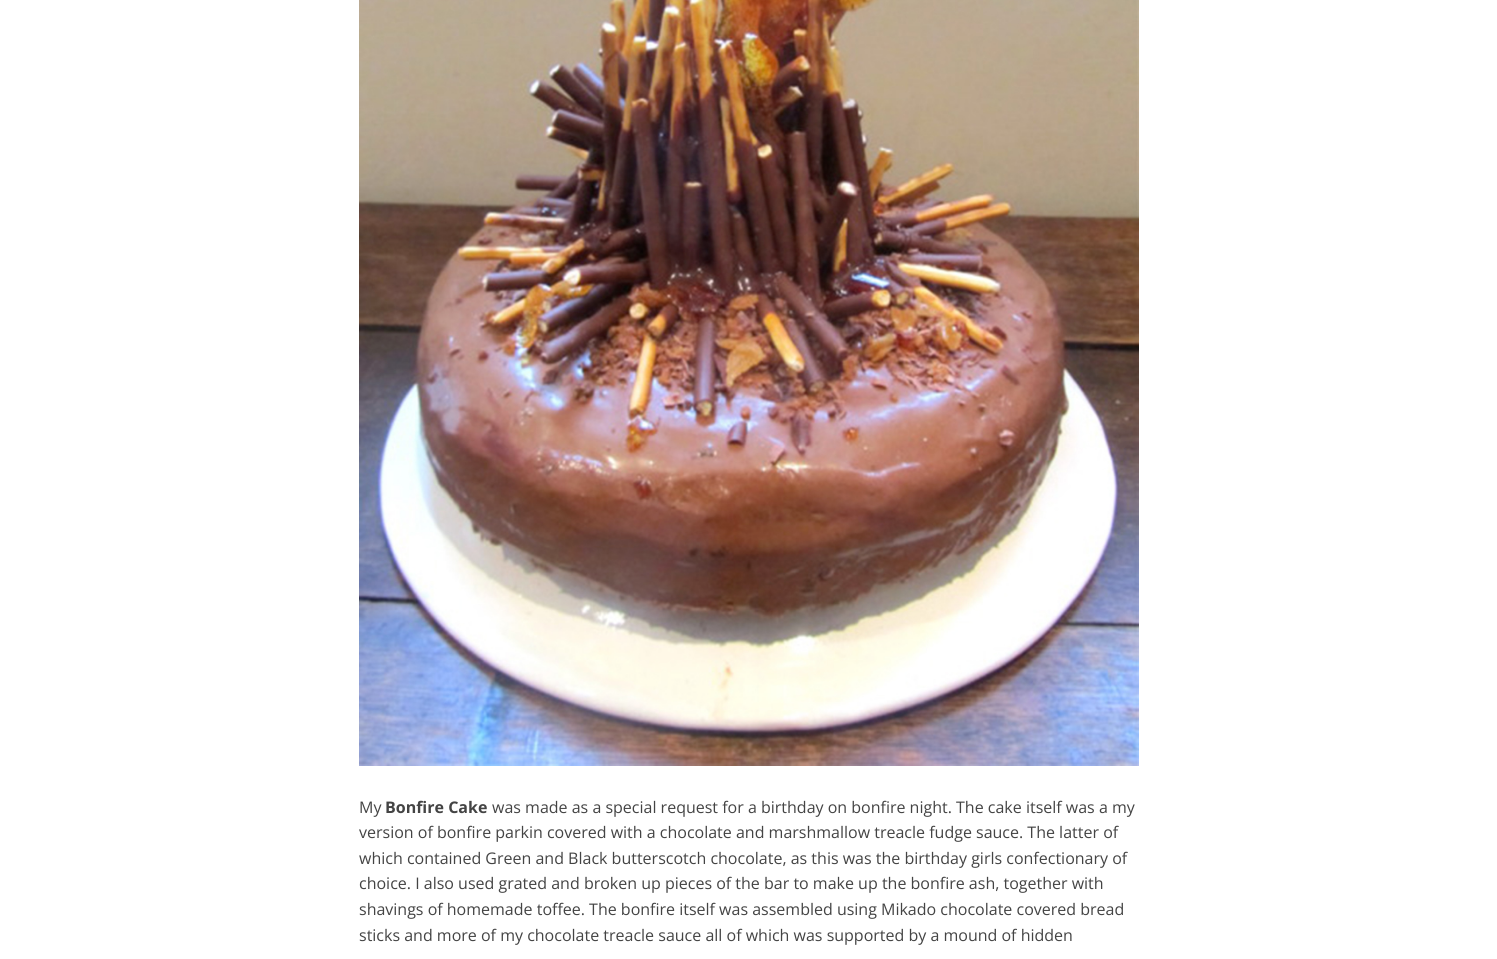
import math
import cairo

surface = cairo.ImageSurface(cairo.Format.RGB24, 1497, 959)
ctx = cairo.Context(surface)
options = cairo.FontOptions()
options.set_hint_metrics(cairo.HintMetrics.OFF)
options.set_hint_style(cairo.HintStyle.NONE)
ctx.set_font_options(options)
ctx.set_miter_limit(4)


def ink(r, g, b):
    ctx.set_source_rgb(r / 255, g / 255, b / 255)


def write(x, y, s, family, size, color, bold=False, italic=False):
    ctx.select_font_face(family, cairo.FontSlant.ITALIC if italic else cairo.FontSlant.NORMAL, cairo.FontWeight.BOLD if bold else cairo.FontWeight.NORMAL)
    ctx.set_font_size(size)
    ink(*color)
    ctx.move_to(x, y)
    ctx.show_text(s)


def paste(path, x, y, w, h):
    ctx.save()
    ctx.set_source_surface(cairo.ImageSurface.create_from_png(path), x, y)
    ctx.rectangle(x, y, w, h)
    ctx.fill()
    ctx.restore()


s1 = dict(family="Open Sans", size=16, color=(68, 68, 68))
s2 = dict(family="Open Sans", size=16, color=(68, 68, 68), bold=True)

ink(255, 255, 255)
ctx.paint()
paste("pic1.png", 359, 0, 780, 766)
write(359, 813, "My", **s1)
write(385, 813, "Bonfire Cake", **s2)
write(492, 813, "was made as a special request for a birthday on bonfire night. The cake itself was a my", **s1)
write(359, 838, "version of bonfire parkin covered with a chocolate and marshmallow treacle fudge sauce. The latter of", **s1)
write(359, 864, "which contained Green and Black butterscotch chocolate, as this was the birthday girls confectionary of", **s1)
write(359, 889, "choice. I also used grated and broken up pieces of the bar to make up the bonfire ash, together with", **s1)
write(359, 915, "shavings of homemade toffee. The bonfire itself was assembled using Mikado chocolate covered bread", **s1)
write(359, 941, "sticks and more of my chocolate treacle sauce all of which was supported by a mound of hidden", **s1)
surface.write_to_png("screenshot.png")
